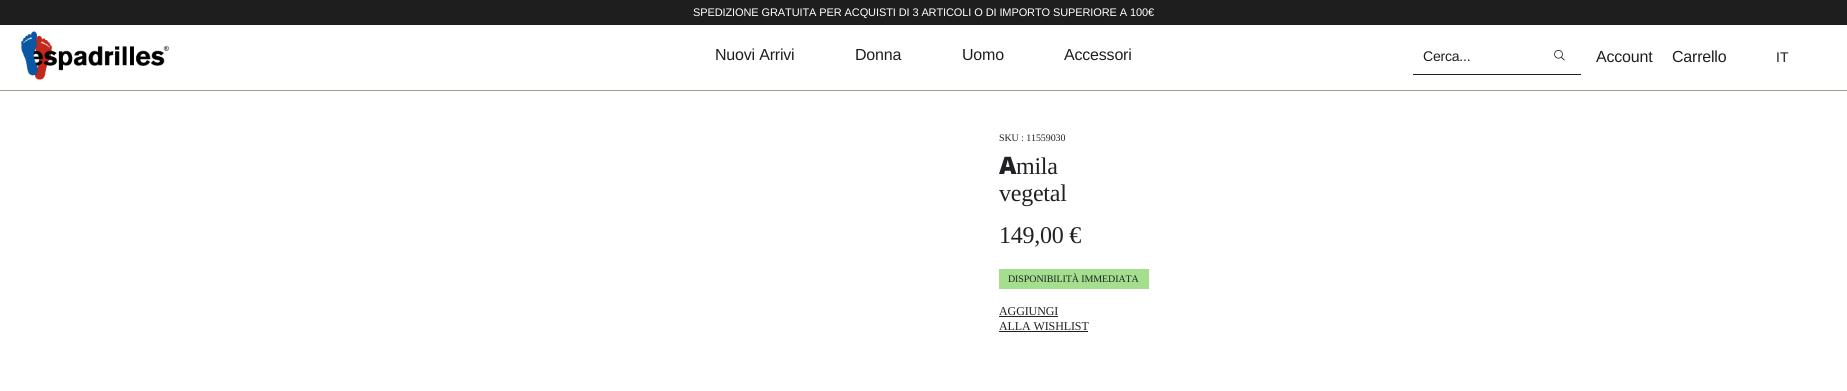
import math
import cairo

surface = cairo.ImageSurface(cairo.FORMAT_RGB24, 1847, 391)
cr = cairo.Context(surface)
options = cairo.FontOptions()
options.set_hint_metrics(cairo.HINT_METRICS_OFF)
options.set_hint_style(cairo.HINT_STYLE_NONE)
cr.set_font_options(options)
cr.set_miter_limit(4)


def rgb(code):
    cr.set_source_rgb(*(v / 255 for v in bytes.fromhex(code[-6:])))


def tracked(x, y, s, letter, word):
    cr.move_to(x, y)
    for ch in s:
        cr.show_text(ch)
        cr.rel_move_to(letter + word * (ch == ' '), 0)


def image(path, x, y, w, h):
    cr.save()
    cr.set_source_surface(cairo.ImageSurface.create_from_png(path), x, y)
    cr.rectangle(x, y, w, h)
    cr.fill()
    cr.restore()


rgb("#ffffff")
cr.paint()
rgb("#a69989")
cr.rectangle(0, 90, 1847, 1)
cr.fill()
rgb("#1e1e1e")
cr.rectangle(0, 0, 1847, 25)
cr.fill()
image("img/1.png", 20, 31, 150, 49)
rgb("#202124")
cr.rectangle(1413, 74, 168, 1)
cr.fill()
image("img/2.png", 1554, 50, 11, 11)
for x, y, w, h, color in [
    (999, 269, 150, 20, "#a4df8e"),
    (999, 316, 59, 1, "#202124"),
    (999, 331, 89, 1, "#202124"),
]:
    rgb(color)
    cr.rectangle(x, y, w, h)
    cr.fill()
cr.select_font_face("Liberation Sans")
cr.set_font_size(11)
rgb("#ffffff")
tracked(693, 16, "SPEDIZIONE GRATUITA PER ACQUISTI DI 3 ARTICOLI O DI IMPORTO SUPERIORE A 100€", -0.1, 0)
cr.set_font_size(16)
rgb("#1e1e1e")
for x, y, s in [
    (715, 60, "Nuovi Arrivi"),
    (855, 60, "Donna"),
    (962, 60, "Uomo"),
    (1064, 60, "Accessori"),
]:
    tracked(x, y, s, -0.2, 0)
cr.set_font_size(14)
tracked(1423, 61, "Cerca...", -0.2, 0)
cr.set_font_size(16)
tracked(1596, 62, "Account", -0.2, 0)
tracked(1672, 62, "Carrello", -0.2, 0)
cr.set_font_size(14)
cr.move_to(1776, 62)
cr.show_text("IT")
cr.select_font_face("Liberation Serif")
cr.set_font_size(10)
rgb("#202124")
tracked(999, 141, "SKU : 11559030", -0.1, 0)
cr.select_font_face("Noto Sans Black")
cr.set_font_size(24)
tracked(999, 174, "A", -0.25, 0)
cr.select_font_face("Liberation Serif")
for x, y, s in [
    (1016, 174, "mila"),
    (999, 201, "vegetal"),
    (999, 243, "149,00 €"),
]:
    tracked(x, y, s, -0.25, 0)
cr.set_font_size(10)
tracked(1008, 282, "DISPONIBILITÀ IMMEDIATA", -0.1, 0)
cr.set_font_size(12)
tracked(999, 315, "AGGIUNGI", -0.1, 0)
tracked(999, 330, "ALLA WISHLIST", -0.1, 0)
surface.write_to_png("page.png")
